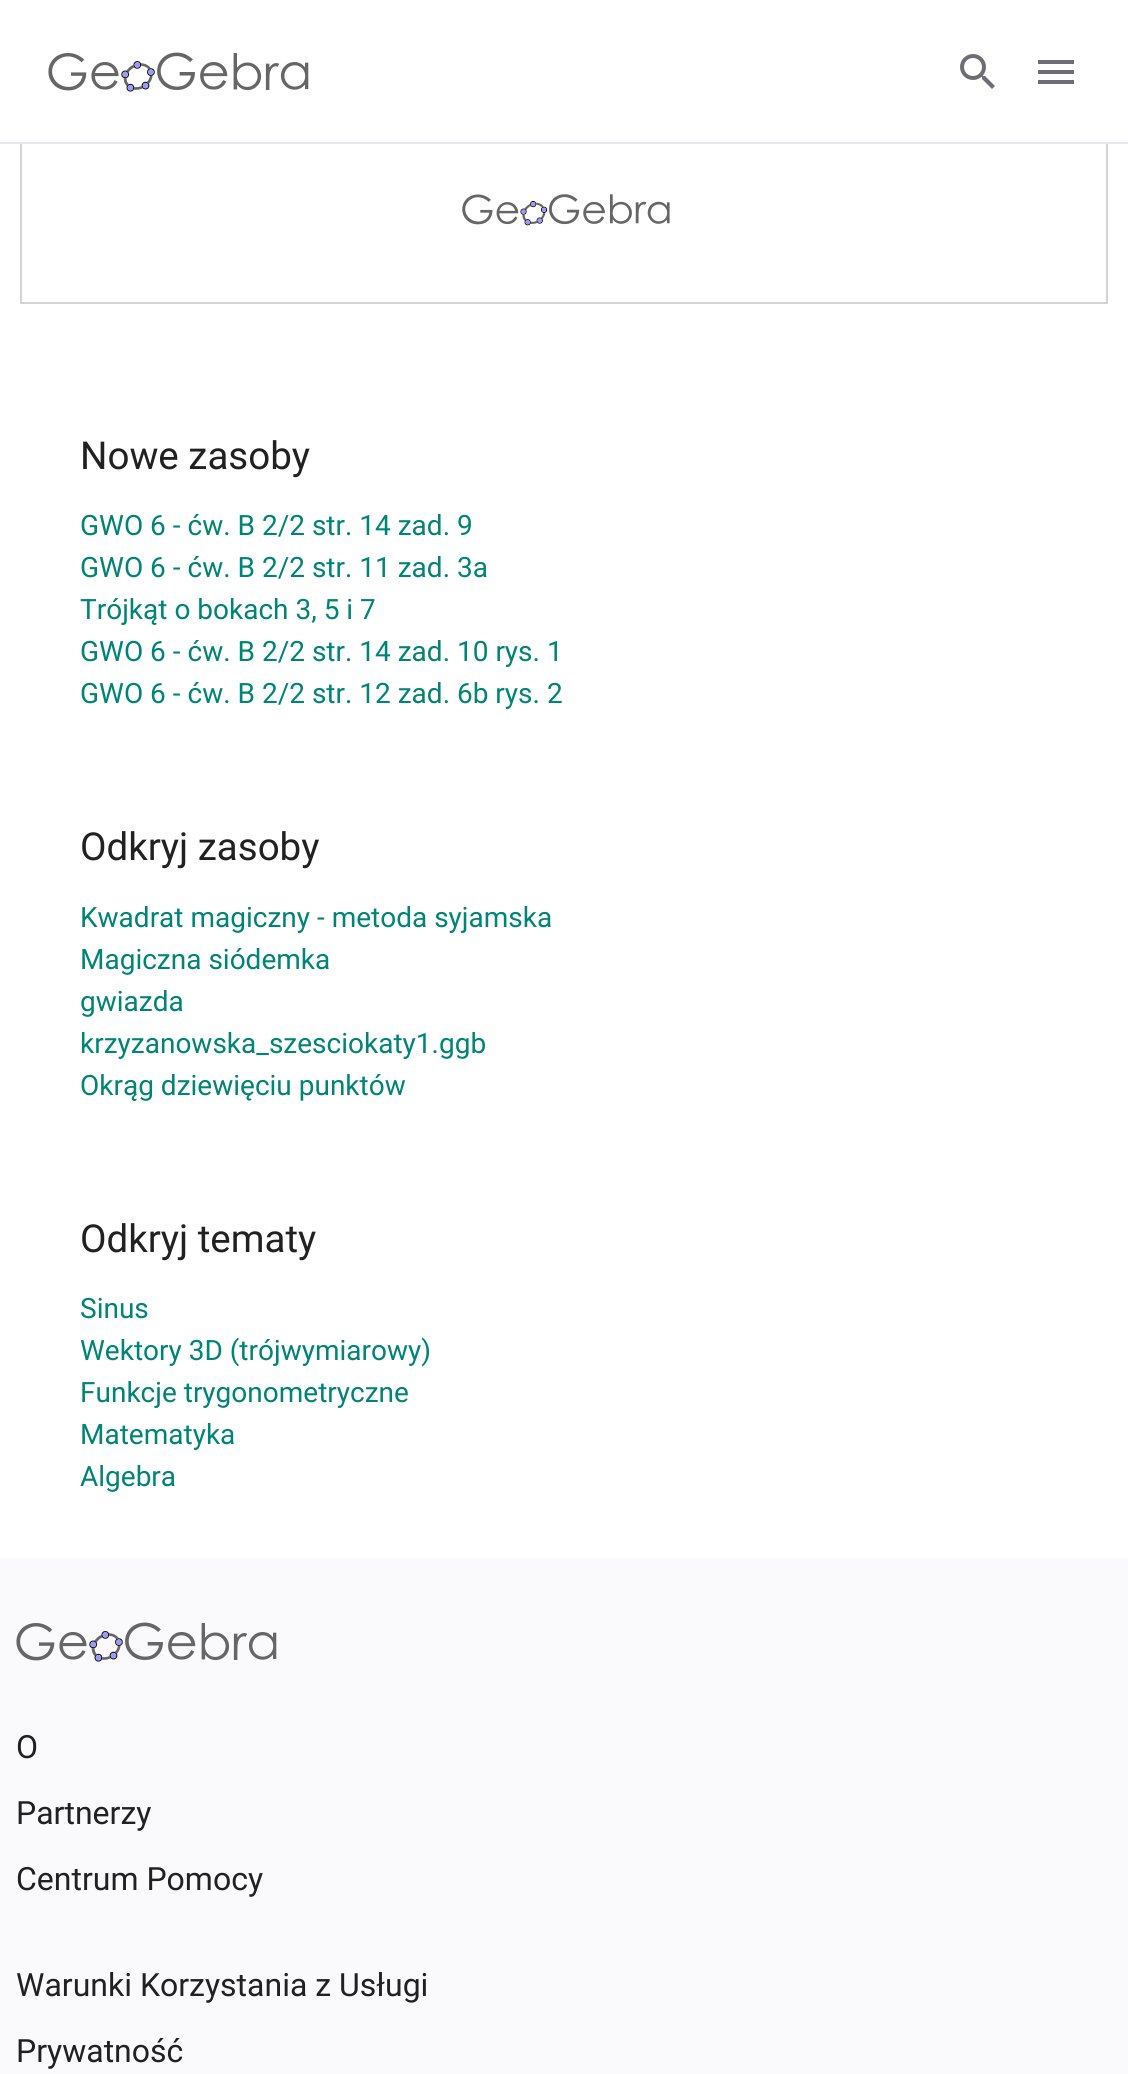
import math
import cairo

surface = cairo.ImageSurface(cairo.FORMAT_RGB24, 1128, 2074)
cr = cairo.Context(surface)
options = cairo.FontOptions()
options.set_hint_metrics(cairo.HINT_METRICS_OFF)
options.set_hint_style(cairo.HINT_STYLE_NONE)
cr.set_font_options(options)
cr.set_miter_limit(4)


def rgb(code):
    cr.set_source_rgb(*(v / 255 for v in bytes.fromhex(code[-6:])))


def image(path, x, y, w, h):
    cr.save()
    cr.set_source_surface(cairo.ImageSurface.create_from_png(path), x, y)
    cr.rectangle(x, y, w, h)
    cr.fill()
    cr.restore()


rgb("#ffffff")
cr.paint()
image("img/4.png", 462, 194, 208, 32)
cr.rectangle(21, -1, 1086, 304)
rgb("#d3d3d3")
cr.stroke()
rgb("#ffffff")
cr.rectangle(20, 0, 1088, 142)
cr.fill()
rgb("#e6e6eb")
cr.rectangle(0, 142, 1128, 2)
cr.fill()
image("img/1.png", 48, 52, 261, 40)
image("img/2.png", 960, 54, 35, 35)
image("img/3.png", 1038, 60, 36, 24)
rgb("#fafafc")
cr.rectangle(0, 1558, 1128, 516)
cr.fill()
image("img/5.png", 16, 1622, 261, 40)
cr.select_font_face("Roboto")
cr.set_font_size(38.5)
rgb("#212121")
cr.move_to(80, 469)
cr.show_text("Nowe zasoby")
cr.set_font_size(28)
rgb("#008475")
for x, y, s in [
    (80, 535, "GWO 6 - ćw. B 2/2 str. 14 zad. 9"),
    (80, 577, "GWO 6 - ćw. B 2/2 str. 11 zad. 3a"),
    (80, 619, "Trójkąt o bokach 3, 5 i 7"),
    (80, 661, "GWO 6 - ćw. B 2/2 str. 14 zad. 10 rys. 1"),
    (80, 703, "GWO 6 - ćw. B 2/2 str. 12 zad. 6b rys. 2"),
]:
    cr.move_to(x, y)
    cr.show_text(s)
cr.set_font_size(38.5)
rgb("#212121")
cr.move_to(80, 860)
cr.show_text("Odkryj zasoby")
cr.set_font_size(28)
rgb("#008475")
for x, y, s in [
    (80, 927, "Kwadrat magiczny - metoda syjamska"),
    (80, 969, "Magiczna siódemka"),
    (80, 1011, "gwiazda"),
    (80, 1053, "krzyzanowska_szesciokaty1.ggb"),
    (80, 1095, "Okrąg dziewięciu punktów"),
]:
    cr.move_to(x, y)
    cr.show_text(s)
cr.set_font_size(38.5)
rgb("#212121")
cr.move_to(80, 1252)
cr.show_text("Odkryj tematy")
cr.set_font_size(28)
rgb("#008475")
for x, y, s in [
    (80, 1318, "Sinus"),
    (80, 1360, "Wektory 3D (trójwymiarowy)"),
    (80, 1402, "Funkcje trygonometryczne"),
    (80, 1444, "Matematyka"),
    (80, 1486, "Algebra"),
]:
    cr.move_to(x, y)
    cr.show_text(s)
cr.set_font_size(32)
rgb("#212121")
for x, y, s in [
    (16, 1758, "O"),
    (16, 1824, "Partnerzy"),
    (16, 1890, "Centrum Pomocy"),
    (16, 1996, "Warunki Korzystania z Usługi"),
    (16, 2062, "Prywatność"),
]:
    cr.move_to(x, y)
    cr.show_text(s)
surface.write_to_png("page.png")
